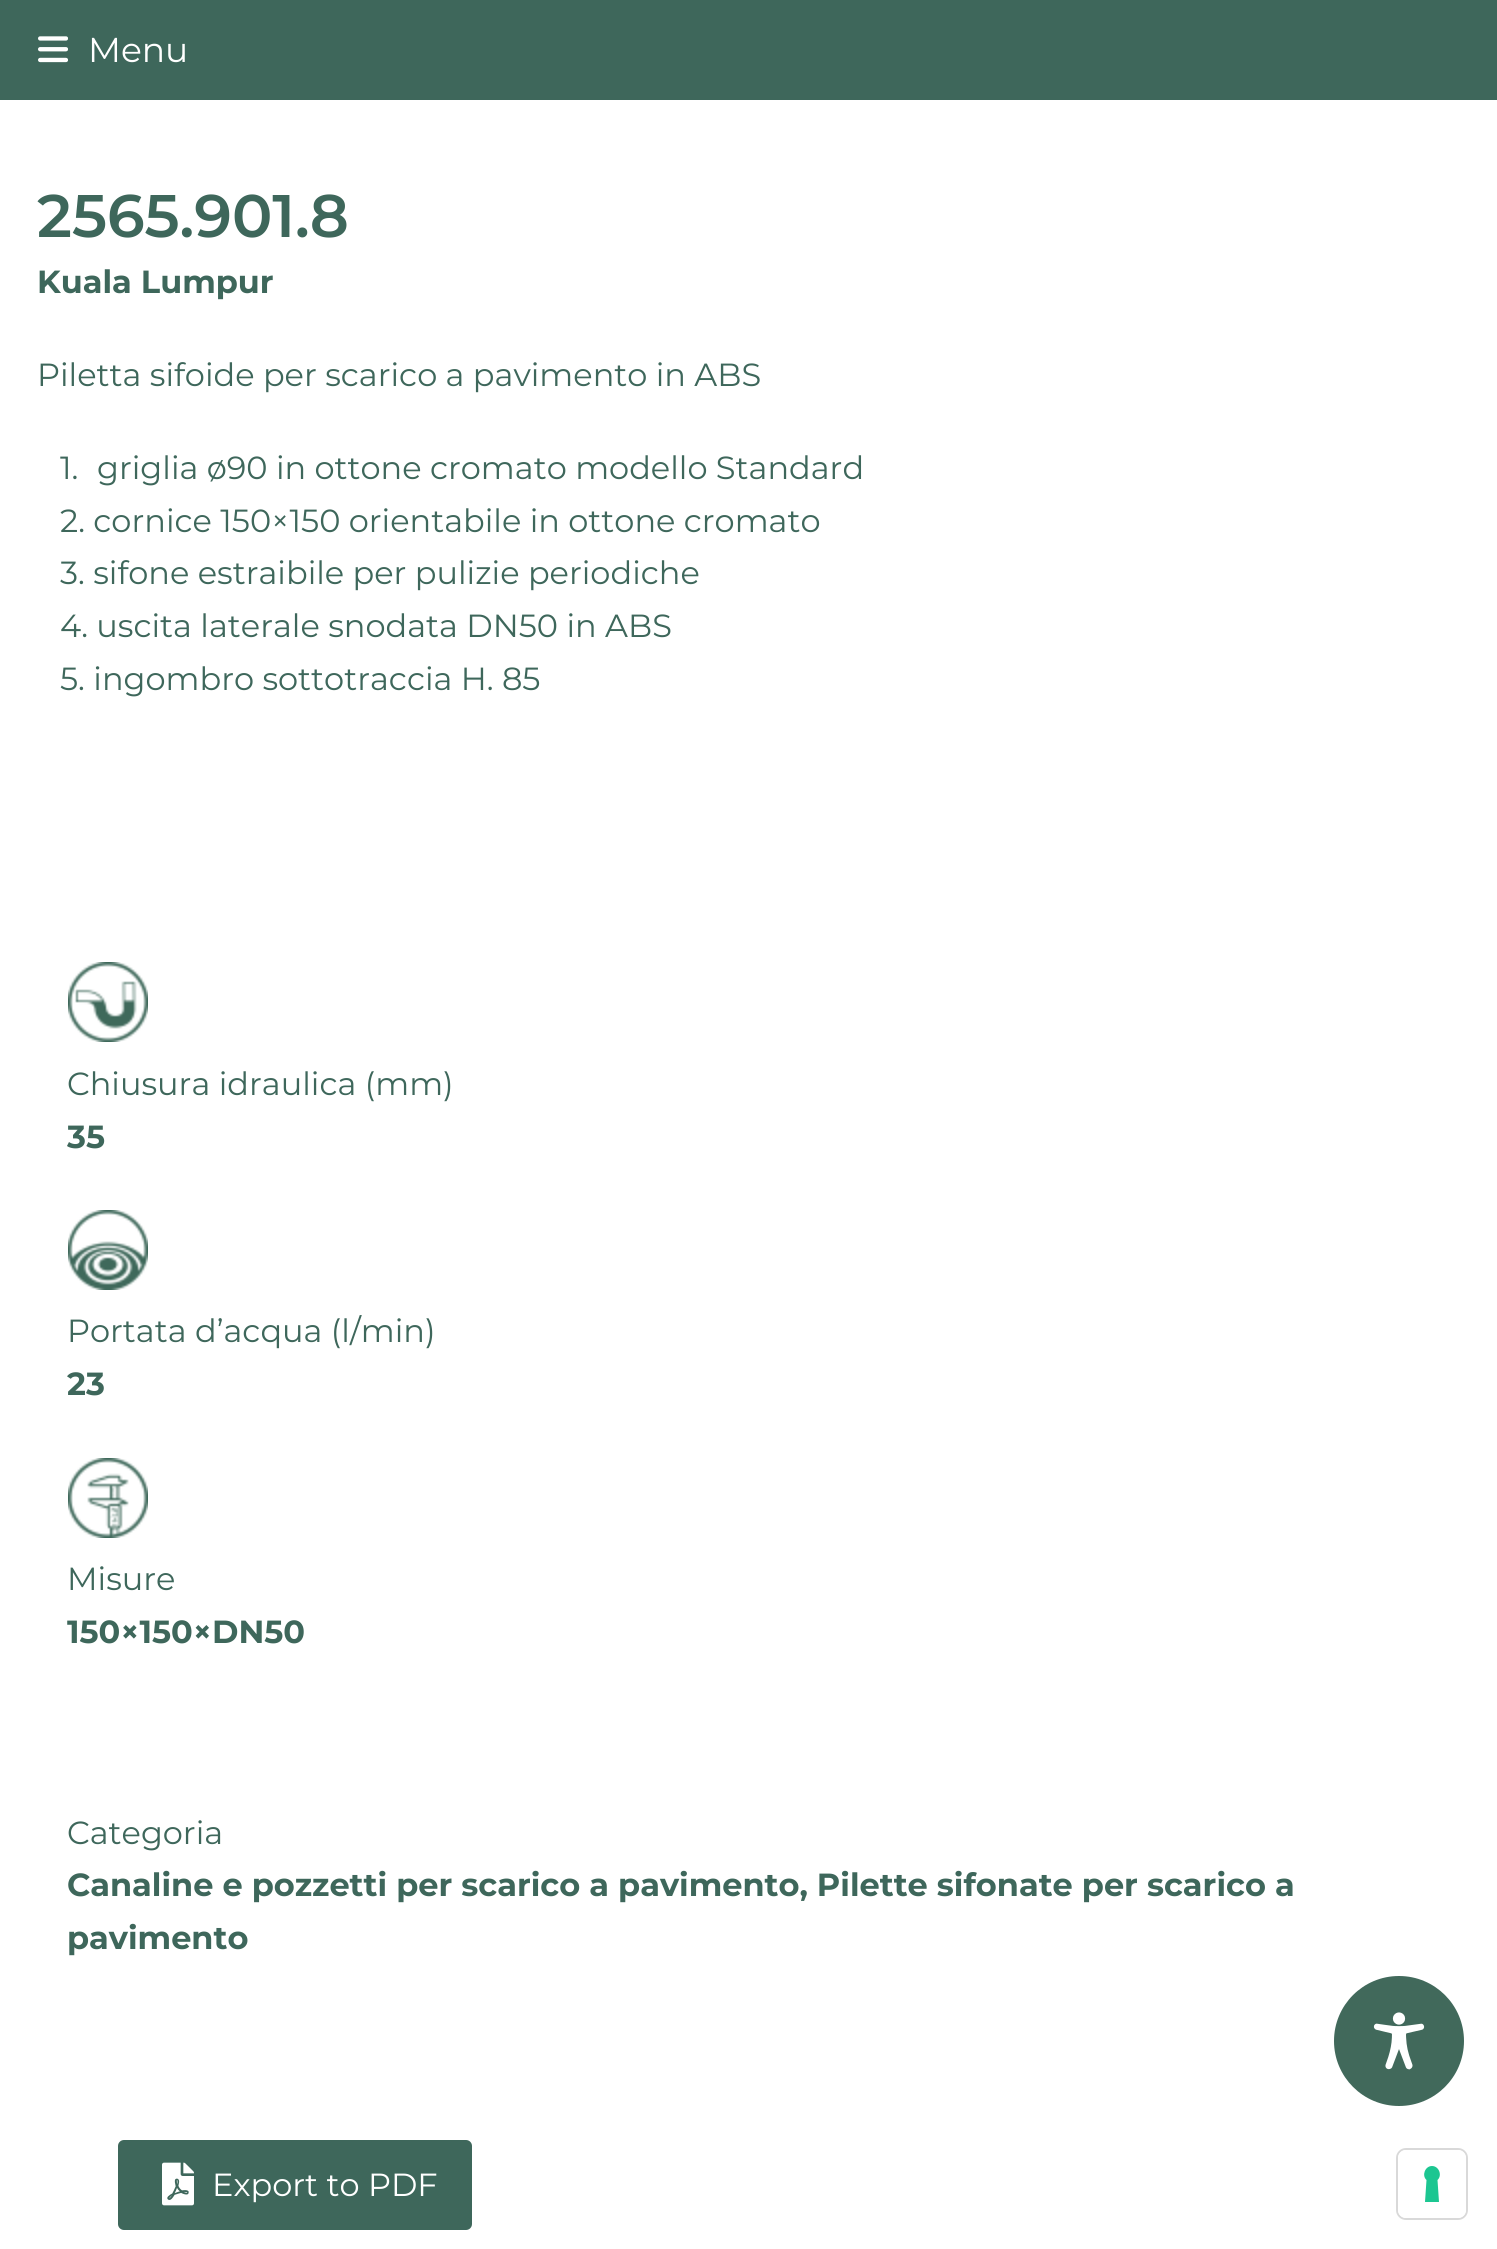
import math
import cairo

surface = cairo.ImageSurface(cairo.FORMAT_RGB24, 1497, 2249)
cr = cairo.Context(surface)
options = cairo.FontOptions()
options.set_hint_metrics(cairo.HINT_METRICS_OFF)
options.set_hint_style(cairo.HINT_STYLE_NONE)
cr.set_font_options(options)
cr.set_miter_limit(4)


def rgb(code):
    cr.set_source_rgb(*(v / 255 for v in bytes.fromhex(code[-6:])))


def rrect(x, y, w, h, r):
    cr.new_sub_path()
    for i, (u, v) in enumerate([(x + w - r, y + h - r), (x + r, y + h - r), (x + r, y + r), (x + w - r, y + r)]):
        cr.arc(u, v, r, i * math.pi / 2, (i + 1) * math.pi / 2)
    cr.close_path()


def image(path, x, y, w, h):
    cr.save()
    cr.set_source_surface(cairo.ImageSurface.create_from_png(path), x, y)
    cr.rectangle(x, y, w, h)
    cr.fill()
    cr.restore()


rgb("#ffffff")
cr.paint()
rgb("#3e675b")
cr.rectangle(0, 0, 1497, 100)
cr.fill()
image("img/1.png", 38, 36, 30, 27)
image("img/2.png", 68, 962, 80, 80)
image("img/3.png", 68, 1210, 80, 80)
image("img/4.png", 68, 1458, 80, 80)
rrect(118, 2140, 354, 90, 6)
cr.fill()
image("img/5.png", 162, 2162, 32, 44)
rgb("#41695b")
cr.arc(1399, 2041, 65, 0, 2 * math.pi)
cr.fill()
image("img/6.png", 1373, 2012, 52, 58)
rrect(1397, 2149, 70, 70, 9)
rgb("#d9d9d9")
cr.stroke()
rgb("#ffffff")
rrect(1398, 2150, 68, 68, 8)
cr.fill()
rgb("#1cc691")
cr.set_fill_rule(cairo.FILL_RULE_EVEN_ODD)
cr.new_path()
cr.move_to(1432, 2166)
cr.curve_to(1439, 2166, 1442.5, 2175.5, 1437.5, 2180)
cr.line_to(1439, 2202)
cr.line_to(1425, 2202)
cr.line_to(1426.5, 2180)
cr.curve_to(1421.5, 2175.5, 1425, 2166, 1432, 2166)
cr.close_path()
cr.fill()
cr.select_font_face("Montserrat")
cr.set_font_size(34.5)
rgb("#ffffff")
cr.move_to(88, 62)
cr.show_text("Menu")
cr.select_font_face("Montserrat SemiBold")
cr.set_font_size(60)
rgb("#3e675b")
cr.move_to(37, 237)
cr.show_text("2565.901.8")
cr.select_font_face("Montserrat", cairo.FONT_SLANT_NORMAL, cairo.FONT_WEIGHT_BOLD)
cr.set_font_size(32)
cr.move_to(37, 293)
cr.show_text("Kuala Lumpur")
cr.select_font_face("Montserrat")
for x, y, s in [
    (37, 386, "Piletta sifoide per scarico a pavimento in ABS"),
    (60, 479, "1."),
    (97, 479, "griglia ø90 in ottone cromato modello Standard"),
    (60, 532, "2. cornice 150×150 orientabile in ottone cromato"),
    (60, 584, "3. sifone estraibile per pulizie periodiche"),
    (60, 637, "4. uscita laterale snodata DN50 in ABS"),
    (60, 690, "5. ingombro sottotraccia H. 85"),
    (67, 1095, "Chiusura idraulica (mm)"),
]:
    cr.move_to(x, y)
    cr.show_text(s)
cr.select_font_face("Montserrat", cairo.FONT_SLANT_NORMAL, cairo.FONT_WEIGHT_BOLD)
cr.move_to(67, 1148)
cr.show_text("35")
cr.select_font_face("Montserrat")
cr.move_to(67, 1342)
cr.show_text("Portata d’acqua (l/min)")
cr.select_font_face("Montserrat", cairo.FONT_SLANT_NORMAL, cairo.FONT_WEIGHT_BOLD)
cr.move_to(67, 1395)
cr.show_text("23")
cr.select_font_face("Montserrat")
cr.move_to(67, 1590)
cr.show_text("Misure")
cr.select_font_face("Montserrat", cairo.FONT_SLANT_NORMAL, cairo.FONT_WEIGHT_BOLD)
cr.move_to(67, 1643)
cr.show_text("150×150×DN50")
cr.select_font_face("Montserrat")
cr.move_to(67, 1844)
cr.show_text("Categoria")
cr.select_font_face("Montserrat", cairo.FONT_SLANT_NORMAL, cairo.FONT_WEIGHT_BOLD)
cr.move_to(67, 1896)
cr.show_text("Canaline e pozzetti per scarico a pavimento, Pilette sifonate per scarico a")
cr.move_to(67, 1949)
cr.show_text("pavimento")
cr.select_font_face("Montserrat")
rgb("#ffffff")
cr.move_to(212, 2196)
cr.show_text("Export to PDF")
surface.write_to_png("page.png")
